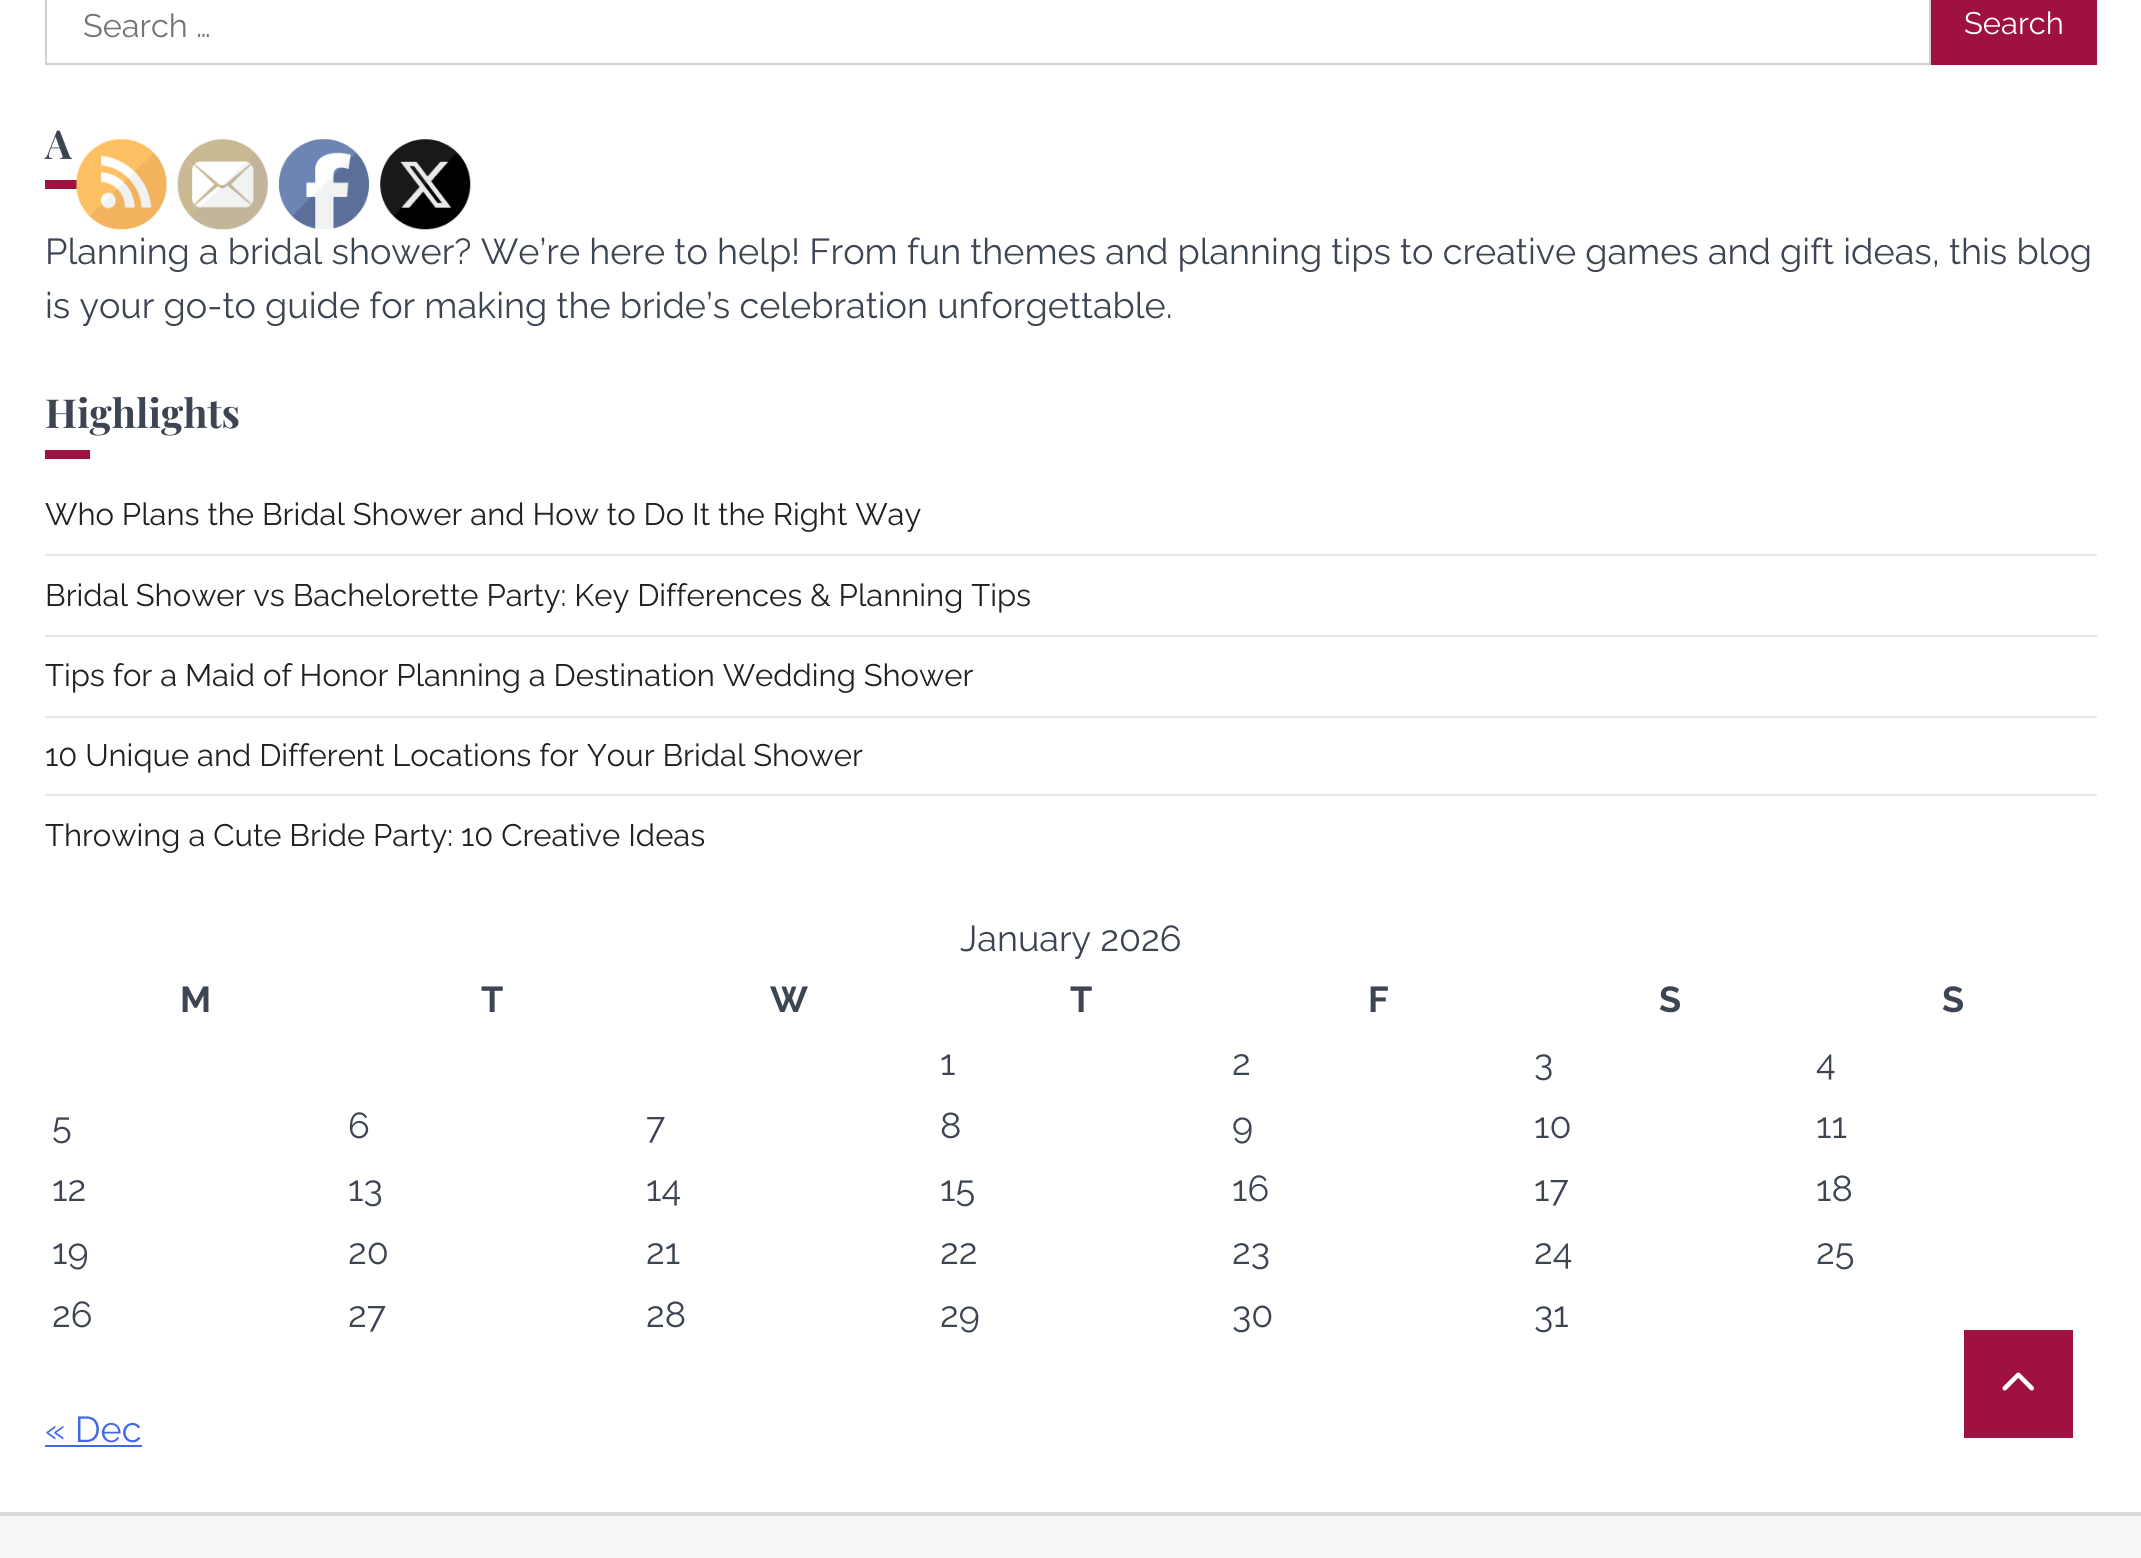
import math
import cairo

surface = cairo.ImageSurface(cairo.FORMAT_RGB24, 2141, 1558)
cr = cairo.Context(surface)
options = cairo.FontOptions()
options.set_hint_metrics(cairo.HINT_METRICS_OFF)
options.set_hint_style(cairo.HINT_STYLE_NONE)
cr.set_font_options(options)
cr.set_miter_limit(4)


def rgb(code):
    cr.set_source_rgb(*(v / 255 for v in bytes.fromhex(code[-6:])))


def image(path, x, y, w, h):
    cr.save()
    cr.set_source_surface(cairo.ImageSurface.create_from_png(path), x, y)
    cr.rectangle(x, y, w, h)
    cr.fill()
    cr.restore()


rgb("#ffffff")
cr.paint()
cr.rectangle(46, -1, 1884, 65)
rgb("#d3ced2")
cr.stroke()
for x, y, w, h, color in [
    (1931, 0, 166, 65, "#9e1140"),
    (45, 180, 33, 9, "#9e1140"),
    (45, 450, 45, 9, "#9e1140"),
    (45, 554, 2052, 2, "#e6e6e6"),
    (45, 635, 2052, 2, "#e6e6e6"),
    (45, 716, 2052, 2, "#e6e6e6"),
    (45, 794, 2052, 2, "#e6e6e6"),
    (45, 1445, 97, 2, "#4169e1"),
    (1964, 1330, 109, 108, "#9e1140"),
]:
    rgb(color)
    cr.rectangle(x, y, w, h)
    cr.fill()
image("img/1.png", 2002, 1372, 32, 19)
for x, y, w, h, color in [
    (0, 1516, 2141, 1, "#fbfbfb"),
    (0, 1512, 2141, 4, "#dadadb"),
    (0, 1517, 2141, 41, "#f7f7f7"),
]:
    rgb(color)
    cr.rectangle(x, y, w, h)
    cr.fill()
image("img/2.png", 76, 139, 91, 91)
image("img/3.png", 177, 139, 91, 91)
image("img/4.png", 279, 139, 90, 90)
image("img/5.png", 380, 139, 91, 91)
cr.select_font_face("Raleway")
cr.set_font_size(32.5)
rgb("#757575")
cr.move_to(83, 37)
cr.show_text("Search …")
cr.set_font_size(31)
rgb("#ffffff")
cr.move_to(1964, 34)
cr.show_text("Search")
cr.select_font_face("Playfair Display", cairo.FONT_SLANT_NORMAL, cairo.FONT_WEIGHT_BOLD)
cr.set_font_size(40)
rgb("#3d4452")
cr.move_to(45, 159)
cr.show_text("A")
cr.select_font_face("Raleway")
cr.set_font_size(36)
cr.move_to(45, 264)
cr.show_text("Planning a bridal shower? We’re here to help! From fun themes and planning tips to creative games and gift ideas, this blog")
cr.move_to(45, 318)
cr.show_text("is your go-to guide for making the bride’s celebration unforgettable.")
cr.select_font_face("Playfair Display", cairo.FONT_SLANT_NORMAL, cairo.FONT_WEIGHT_BOLD)
cr.set_font_size(40)
cr.move_to(45, 428)
cr.show_text("Highlights")
cr.select_font_face("Raleway")
cr.set_font_size(31)
rgb("#202124")
for x, y, s in [
    (45, 525, "Who Plans the Bridal Shower and How to Do It the Right Way"),
    (45, 606, "Bridal Shower vs Bachelorette Party: Key Differences & Planning Tips"),
    (45, 686, "Tips for a Maid of Honor Planning a Destination Wedding Shower"),
    (45, 766, "10 Unique and Different Locations for Your Bridal Shower"),
    (45, 846, "Throwing a Cute Bride Party: 10 Creative Ideas"),
]:
    cr.move_to(x, y)
    cr.show_text(s)
cr.set_font_size(36)
rgb("#3d4452")
cr.move_to(960, 951)
cr.show_text("January 2026")
cr.select_font_face("Raleway", cairo.FONT_SLANT_NORMAL, cairo.FONT_WEIGHT_BOLD)
for x, y, s in [
    (180, 1012, "M"),
    (481, 1012, "T"),
    (770, 1012, "W"),
    (1070, 1012, "T"),
    (1368, 1012, "F"),
    (1659, 1012, "S"),
    (1942, 1012, "S"),
]:
    cr.move_to(x, y)
    cr.show_text(s)
cr.select_font_face("Raleway")
for x, y, s in [
    (940, 1075, "1"),
    (1232, 1075, "2"),
    (1534, 1075, "3"),
    (1816, 1075, "4"),
    (52, 1138, "5"),
    (348, 1138, "6"),
    (646, 1138, "7"),
    (940, 1138, "8"),
    (1232, 1138, "9"),
    (1534, 1138, "10"),
    (1816, 1138, "11"),
    (52, 1201, "12"),
    (348, 1201, "13"),
    (646, 1201, "14"),
    (940, 1201, "15"),
    (1232, 1201, "16"),
    (1534, 1201, "17"),
    (1816, 1201, "18"),
    (52, 1264, "19"),
    (348, 1264, "20"),
    (646, 1264, "21"),
    (940, 1264, "22"),
    (1232, 1264, "23"),
    (1534, 1264, "24"),
    (1816, 1264, "25"),
    (52, 1327, "26"),
    (348, 1327, "27"),
    (646, 1327, "28"),
    (940, 1327, "29"),
    (1232, 1327, "30"),
    (1534, 1327, "31"),
]:
    cr.move_to(x, y)
    cr.show_text(s)
rgb("#4169e1")
cr.move_to(45, 1442)
cr.show_text("« Dec")
surface.write_to_png("page.png")
